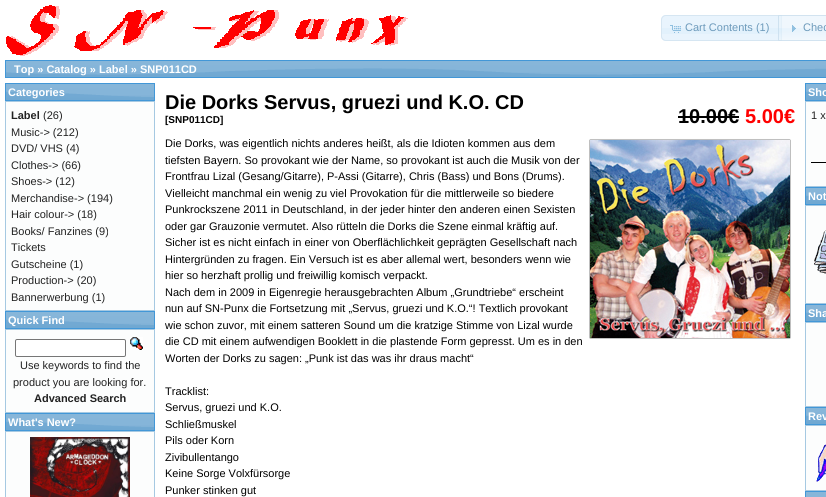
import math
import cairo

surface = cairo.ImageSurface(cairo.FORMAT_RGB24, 826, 497)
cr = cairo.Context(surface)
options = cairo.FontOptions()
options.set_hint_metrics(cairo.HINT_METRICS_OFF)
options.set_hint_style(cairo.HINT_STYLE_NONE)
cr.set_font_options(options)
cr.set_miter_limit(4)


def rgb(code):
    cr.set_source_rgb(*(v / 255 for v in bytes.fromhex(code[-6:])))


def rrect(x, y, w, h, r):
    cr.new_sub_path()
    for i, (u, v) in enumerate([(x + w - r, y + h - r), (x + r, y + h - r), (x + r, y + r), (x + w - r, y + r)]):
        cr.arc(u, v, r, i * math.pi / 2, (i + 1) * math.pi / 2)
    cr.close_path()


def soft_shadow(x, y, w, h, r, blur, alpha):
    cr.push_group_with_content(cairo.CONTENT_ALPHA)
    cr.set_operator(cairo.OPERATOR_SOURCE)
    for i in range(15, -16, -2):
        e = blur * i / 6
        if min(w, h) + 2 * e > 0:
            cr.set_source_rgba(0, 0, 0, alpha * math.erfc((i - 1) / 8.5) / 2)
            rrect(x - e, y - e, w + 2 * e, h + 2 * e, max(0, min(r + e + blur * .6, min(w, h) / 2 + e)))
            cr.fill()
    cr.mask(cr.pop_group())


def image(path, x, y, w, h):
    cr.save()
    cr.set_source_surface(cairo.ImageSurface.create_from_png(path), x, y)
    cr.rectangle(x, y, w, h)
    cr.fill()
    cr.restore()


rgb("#ffffff")
cr.paint()
image("img/1.png", 6, 5, 402, 51)
rgb("#e9f4fd")
cr.new_path()
cr.move_to(666, 15)
cr.line_to(782, 15)
cr.line_to(782, 41)
cr.line_to(666, 41)
cr.curve_to(663, 41, 661, 39, 661, 36)
cr.line_to(661, 20)
cr.curve_to(661, 17, 663, 15, 666, 15)
cr.close_path()
cr.fill()
rgb("#e2f1fc")
cr.rectangle(661, 28, 121, 6)
cr.fill()
cr.new_path()
cr.move_to(666, 15.5)
cr.line_to(781.5, 15.5)
cr.line_to(781.5, 40.5)
cr.line_to(666, 40.5)
cr.curve_to(663.5, 40.5, 661.5, 38.5, 661.5, 36)
cr.line_to(661.5, 20)
cr.curve_to(661.5, 17.5, 663.5, 15.5, 666, 15.5)
cr.close_path()
rgb("#d6e6f2")
cr.set_line_width(1)
cr.stroke()
image("img/2.png", 670, 25, 11, 8)
image("img/3.png", 778, 15, 48, 26)
cr.rectangle(778.5, 15.5, 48, 25)
cr.set_source_rgba(0.773, 0.859, 0.925, 0.7)
cr.stroke()
image("img/4.png", 792, 25, 4, 7)
image("img/5.png", 6, 61, 820, 16)
cr.rectangle(5.5, 60.5, 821, 17)
rgb("#4297d7")
cr.stroke()
image("img/6.png", 6, 84, 148, 16)
cr.rectangle(5.5, 83.5, 149, 17)
cr.stroke()
rgb("#fcfdfd")
cr.rectangle(5.5, 101.5, 149, 209)
cr.fill_preserve()
rgb("#a6c9e2")
cr.stroke()
image("img/6.png", 6, 312, 148, 16)
cr.rectangle(5.5, 311.5, 149, 17)
rgb("#4297d7")
cr.stroke()
rgb("#fcfdfd")
cr.rectangle(5.5, 329.5, 149, 83)
cr.fill_preserve()
rgb("#a6c9e2")
cr.stroke()
rgb("#ffffff")
rrect(15.5, 339.5, 110, 17, 1.5)
cr.fill_preserve()
rgb("#767676")
cr.stroke()
image("img/7.png", 130, 337, 13, 13)
image("img/6.png", 6, 414, 148, 16)
cr.rectangle(5.5, 413.5, 149, 17)
rgb("#4297d7")
cr.stroke()
rgb("#fcfdfd")
cr.rectangle(5.5, 431.5, 149, 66)
cr.fill_preserve()
rgb("#a6c9e2")
cr.stroke()
image("img/8.png", 30, 437, 100, 60)
rgb("#000000")
cr.rectangle(678, 116, 61, 2)
cr.fill()
rgb("#000000")
soft_shadow(590, 140, 200, 198, 0, 0.5, 1)
image("img/9.png", 590, 140, 200, 198)
image("img/10.png", 806, 84, 20, 16)
cr.rectangle(805.5, 83.5, 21, 17)
rgb("#4297d7")
cr.stroke()
rgb("#fcfdfd")
cr.rectangle(805.5, 101.5, 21, 85)
cr.fill_preserve()
rgb("#a6c9e2")
cr.stroke()
rgb("#000000")
cr.rectangle(811, 162, 15, 1)
cr.fill()
image("img/10.png", 806, 188, 20, 16)
cr.rectangle(805.5, 187.5, 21, 17)
rgb("#4297d7")
cr.stroke()
rgb("#fcfdfd")
cr.rectangle(805.5, 205.5, 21, 98)
cr.fill_preserve()
rgb("#a6c9e2")
cr.stroke()
image("img/11.png", 814, 230, 12, 44)
image("img/10.png", 806, 305, 20, 16)
cr.rectangle(805.5, 304.5, 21, 17)
rgb("#4297d7")
cr.stroke()
rgb("#fcfdfd")
cr.rectangle(805.5, 322.5, 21, 84)
cr.fill_preserve()
rgb("#a6c9e2")
cr.stroke()
image("img/10.png", 806, 408, 20, 16)
cr.rectangle(805.5, 407.5, 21, 17)
rgb("#4297d7")
cr.stroke()
rgb("#fcfdfd")
cr.rectangle(805.5, 425.5, 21, 65)
cr.fill_preserve()
rgb("#a6c9e2")
cr.stroke()
image("img/12.png", 816, 444, 10, 38)
rgb("#87b6d9")
cr.rectangle(805.5, 491.5, 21, 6)
cr.fill_preserve()
rgb("#4297d7")
cr.stroke()
cr.select_font_face("Liberation Sans")
cr.set_font_size(11)
rgb("#6d9abb")
cr.move_to(685, 31)
cr.show_text("Cart Contents (1)")
cr.move_to(803, 31)
cr.show_text("Chec")
cr.select_font_face("Liberation Sans", cairo.FONT_SLANT_NORMAL, cairo.FONT_WEIGHT_BOLD)
rgb("#ffffff")
cr.move_to(14, 73)
cr.show_text("Top » Catalog » Label » SNP011CD")
cr.move_to(8, 96)
cr.show_text("Categories")
rgb("#222222")
cr.move_to(11, 119)
cr.show_text("Label")
cr.select_font_face("Liberation Sans")
for x, y, s in [
    (43, 119, "(26)"),
    (11, 136, "Music-> (212)"),
    (11, 152, "DVD/ VHS (4)"),
    (11, 169, "Clothes-> (66)"),
    (11, 185, "Shoes-> (12)"),
    (11, 202, "Merchandise-> (194)"),
    (11, 218, "Hair colour-> (18)"),
    (11, 235, "Books/ Fanzines (9)"),
    (11, 251, "Tickets"),
    (11, 268, "Gutscheine (1)"),
    (11, 284, "Production-> (20)"),
    (11, 301, "Bannerwerbung (1)"),
]:
    cr.move_to(x, y)
    cr.show_text(s)
cr.select_font_face("Liberation Sans", cairo.FONT_SLANT_NORMAL, cairo.FONT_WEIGHT_BOLD)
rgb("#ffffff")
cr.move_to(8, 324)
cr.show_text("Quick Find")
cr.select_font_face("Liberation Sans")
rgb("#222222")
cr.move_to(20, 369)
cr.show_text("Use keywords to find the")
cr.move_to(13, 386)
cr.show_text("product you are looking for.")
cr.select_font_face("Liberation Sans", cairo.FONT_SLANT_NORMAL, cairo.FONT_WEIGHT_BOLD)
cr.move_to(34, 402)
cr.show_text("Advanced Search")
rgb("#ffffff")
cr.move_to(8, 426)
cr.show_text("What's New?")
cr.set_font_size(20)
rgb("#000000")
cr.move_to(165, 109)
cr.show_text("Die Dorks Servus, gruezi und K.O. CD")
cr.set_font_size(10)
cr.move_to(165, 123)
cr.show_text("[SNP011CD]")
cr.set_font_size(20)
cr.move_to(678, 123)
cr.show_text("10.00€")
rgb("#ff0000")
cr.move_to(745, 123)
cr.show_text("5.00€")
cr.select_font_face("Liberation Sans")
cr.set_font_size(11)
rgb("#000000")
for x, y, s in [
    (165, 147, "Die Dorks, was eigentlich nichts anderes heißt, als die Idioten kommen aus dem"),
    (165, 164, "tiefsten Bayern. So provokant wie der Name, so provokant ist auch die Musik von der"),
    (165, 180, "Frontfrau Lizal (Gesang/Gitarre), P-Assi (Gitarre), Chris (Bass) und Bons (Drums)."),
    (165, 197, "Vielleicht manchmal ein wenig zu viel Provokation für die mittlerweile so biedere"),
    (165, 213, "Punkrockszene 2011 in Deutschland, in der jeder hinter den anderen einen Sexisten"),
    (165, 230, "oder gar Grauzonie vermutet. Also rütteln die Dorks die Szene einmal kräftig auf."),
    (165, 246, "Sicher ist es nicht einfach in einer von Oberflächlichkeit geprägten Gesellschaft nach"),
    (165, 263, "Hintergründen zu fragen. Ein Versuch ist es aber allemal wert, besonders wenn wie"),
    (165, 279, "hier so herzhaft prollig und freiwillig komisch verpackt."),
    (165, 296, "Nach dem in 2009 in Eigenregie herausgebrachten Album „Grundtriebe“ erscheint"),
    (165, 312, "nun auf SN-Punx die Fortsetzung mit „Servus, gruezi und K.O.“! Textlich provokant"),
    (165, 329, "wie schon zuvor, mit einem satteren Sound um die kratzige Stimme von Lizal wurde"),
    (165, 345, "die CD mit einem aufwendigen Booklett in die plastende Form gepresst. Um es in den"),
    (165, 362, "Worten der Dorks zu sagen: „Punk ist das was ihr draus macht“"),
    (165, 395, "Tracklist:"),
    (165, 411, "Servus, gruezi und K.O."),
    (165, 428, "Schließmuskel"),
    (165, 444, "Pils oder Korn"),
    (165, 461, "Zivibullentango"),
    (165, 477, "Keine Sorge Volxfürsorge"),
    (165, 494, "Punker stinken gut"),
]:
    cr.move_to(x, y)
    cr.show_text(s)
cr.select_font_face("Liberation Sans", cairo.FONT_SLANT_NORMAL, cairo.FONT_WEIGHT_BOLD)
rgb("#ffffff")
cr.move_to(808, 96)
cr.show_text("Sho")
cr.select_font_face("Liberation Sans")
rgb("#222222")
cr.move_to(811, 119)
cr.show_text("1 x")
cr.select_font_face("Liberation Sans", cairo.FONT_SLANT_NORMAL, cairo.FONT_WEIGHT_BOLD)
rgb("#ffffff")
for x, y, s in [
    (808, 200, "Not"),
    (808, 317, "Sha"),
    (808, 420, "Rev"),
]:
    cr.move_to(x, y)
    cr.show_text(s)
surface.write_to_png("page.png")
